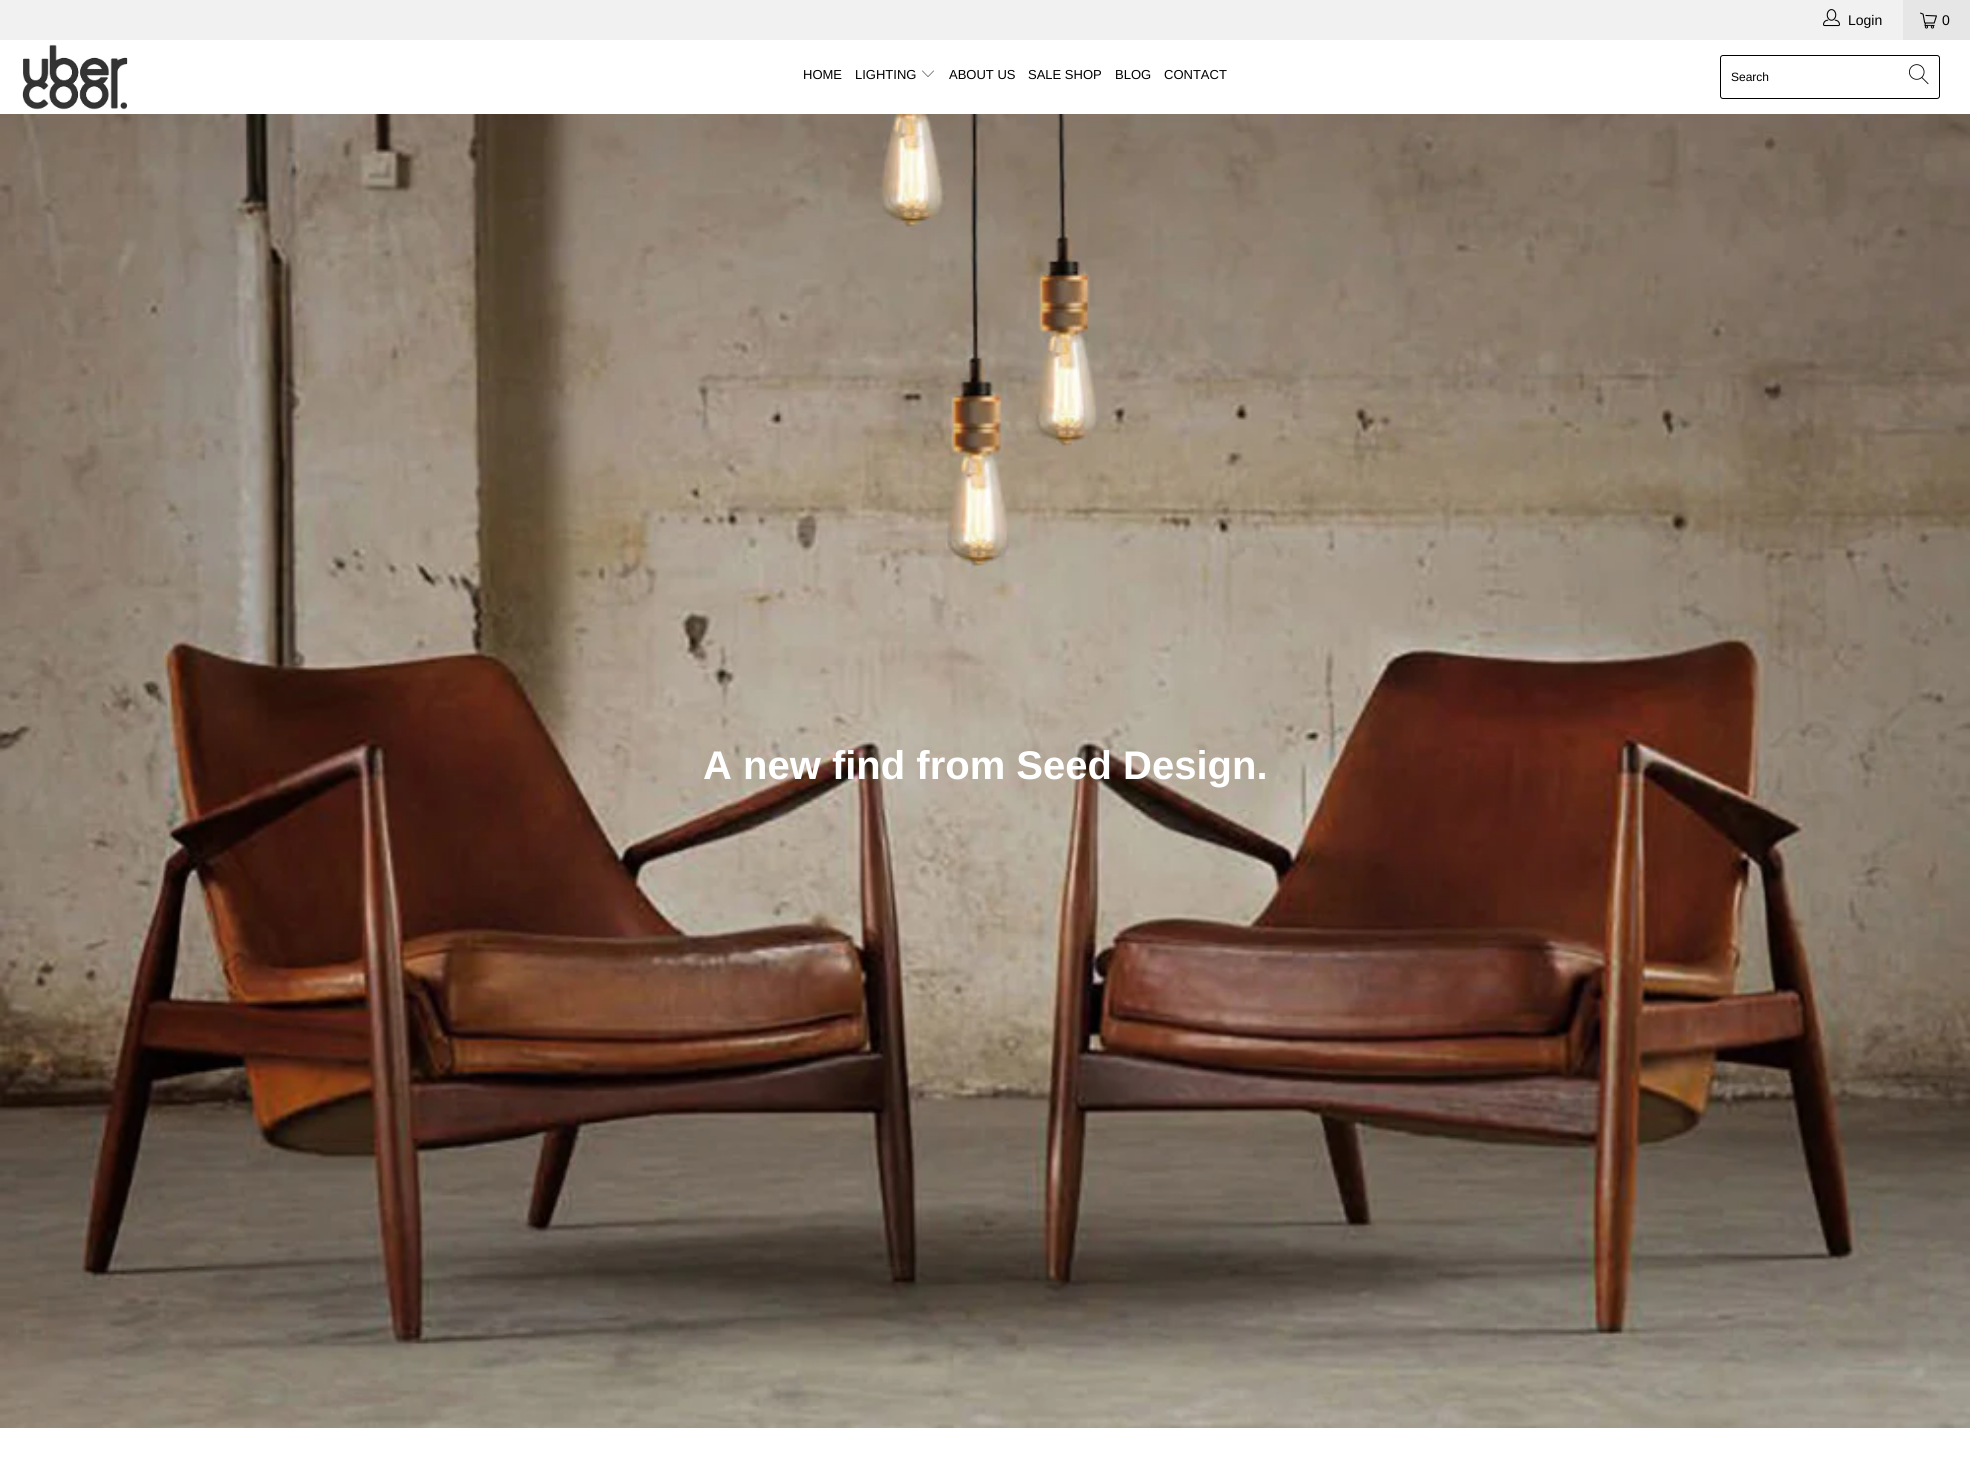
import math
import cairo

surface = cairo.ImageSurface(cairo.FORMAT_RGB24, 1970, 1465)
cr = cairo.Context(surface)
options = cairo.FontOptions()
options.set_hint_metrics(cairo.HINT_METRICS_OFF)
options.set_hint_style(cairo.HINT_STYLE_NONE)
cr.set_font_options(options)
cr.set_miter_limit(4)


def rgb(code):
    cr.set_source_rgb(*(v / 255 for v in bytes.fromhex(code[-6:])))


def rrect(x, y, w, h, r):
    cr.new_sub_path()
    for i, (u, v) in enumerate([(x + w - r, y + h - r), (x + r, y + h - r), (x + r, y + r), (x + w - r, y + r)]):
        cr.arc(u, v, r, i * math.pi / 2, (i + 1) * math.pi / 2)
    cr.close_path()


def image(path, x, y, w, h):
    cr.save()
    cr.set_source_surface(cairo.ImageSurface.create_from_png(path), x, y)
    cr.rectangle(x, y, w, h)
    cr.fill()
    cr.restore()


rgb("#ffffff")
cr.paint()
rgb("#f1f1f1")
cr.rectangle(0, 0, 1903, 40)
cr.fill()
image("img/1.png", 1823, 9, 17, 18)
rgb("#e6e6e6")
cr.rectangle(1903, 0, 67, 40)
cr.fill()
image("img/2.png", 1920, 12, 17, 17)
image("img/3.png", 22, 44, 106, 66)
image("img/4.png", 922, 70, 12, 7)
rrect(1720.5, 55.5, 219, 43, 2.5)
rgb("#000000")
cr.set_line_width(1)
cr.stroke()
image("img/5.png", 1909, 64, 20, 21)
image("img/6.png", 0, 114, 1970, 1314)
cr.select_font_face("Arimo")
cr.set_font_size(14)
cr.move_to(1848, 25)
cr.show_text("Login")
cr.move_to(1942, 25)
cr.show_text("0")
cr.set_font_size(13)
for x, y, s in [
    (803, 79, "HOME"),
    (855, 79, "LIGHTING"),
    (949, 79, "ABOUT US"),
    (1028, 79, "SALE SHOP"),
    (1115, 79, "BLOG"),
    (1164, 79, "CONTACT"),
]:
    cr.move_to(x, y)
    cr.show_text(s)
cr.set_font_size(12)
cr.move_to(1731, 81)
cr.show_text("Search")
cr.select_font_face("Arimo", cairo.FONT_SLANT_NORMAL, cairo.FONT_WEIGHT_BOLD)
cr.set_font_size(40)
rgb("#ffffff")
cr.move_to(703, 779)
cr.show_text("A new find from Seed Design.")
surface.write_to_png("page.png")
